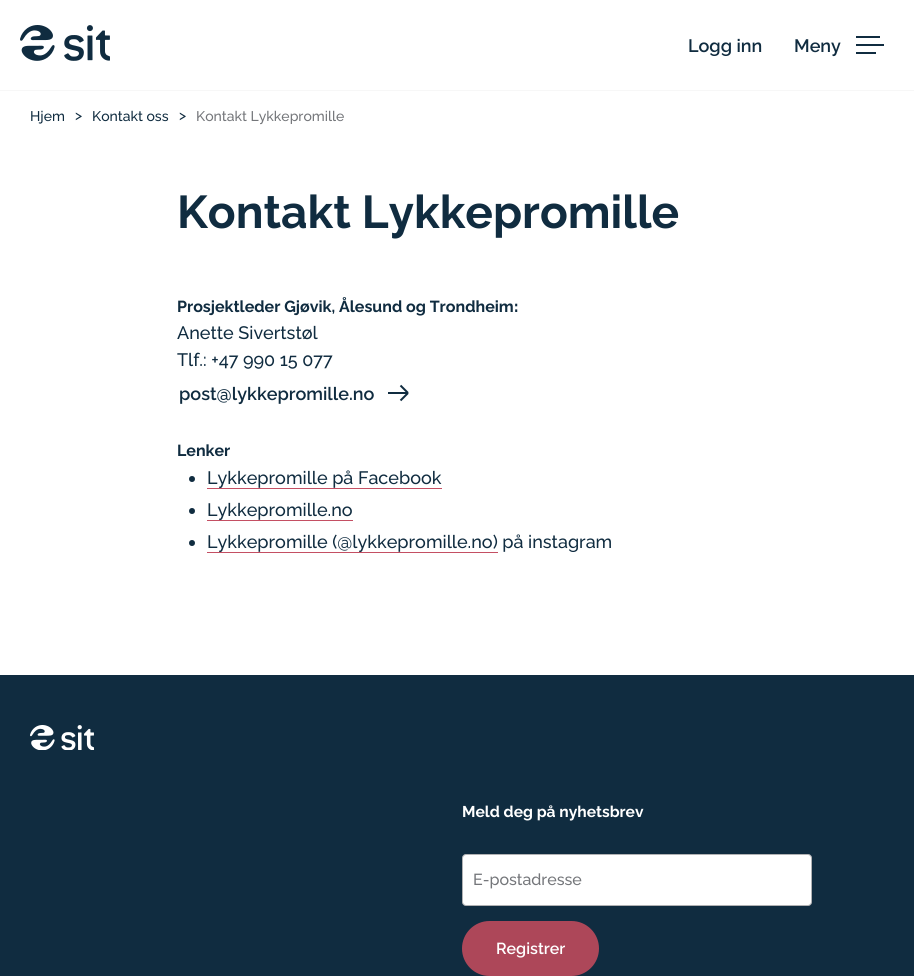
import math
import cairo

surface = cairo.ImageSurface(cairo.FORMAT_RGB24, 914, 976)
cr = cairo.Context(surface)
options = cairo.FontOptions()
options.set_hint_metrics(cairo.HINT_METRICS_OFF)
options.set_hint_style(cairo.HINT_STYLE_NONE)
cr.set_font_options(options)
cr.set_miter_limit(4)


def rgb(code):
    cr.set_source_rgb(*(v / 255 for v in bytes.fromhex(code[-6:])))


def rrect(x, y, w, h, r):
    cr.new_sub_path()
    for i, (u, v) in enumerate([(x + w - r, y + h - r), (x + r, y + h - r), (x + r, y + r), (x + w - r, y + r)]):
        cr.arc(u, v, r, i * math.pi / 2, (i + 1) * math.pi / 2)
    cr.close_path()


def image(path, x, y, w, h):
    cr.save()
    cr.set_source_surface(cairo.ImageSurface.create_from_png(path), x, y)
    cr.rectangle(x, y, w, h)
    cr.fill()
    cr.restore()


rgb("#ffffff")
cr.paint()
rgb("#f7f7f7")
cr.rectangle(0, 90, 914, 1)
cr.fill()
image("img/1.png", 20, 25, 90, 36)
for x, y, w, h, color in [
    (856, 36, 24, 2, "#102c40"),
    (856, 44, 28, 2, "#102c40"),
    (856, 52, 20, 2, "#102c40"),
]:
    rgb(color)
    cr.rectangle(x, y, w, h)
    cr.fill()
cr.new_path()
cr.move_to(388, 393)
cr.line_to(408, 393)
cr.move_to(408, 393)
cr.line_to(400.5, 385.5)
cr.move_to(408, 393)
cr.line_to(400.5, 400.5)
cr.stroke()
cr.arc(192, 479, 3, 0, 2 * math.pi)
cr.fill()
rgb("#c44f63")
cr.rectangle(207, 488, 235, 1)
cr.fill()
rgb("#102c40")
cr.arc(192, 511, 3, 0, 2 * math.pi)
cr.fill()
rgb("#c44f63")
cr.rectangle(207, 520, 146, 1)
cr.fill()
rgb("#102c40")
cr.arc(192, 543, 3, 0, 2 * math.pi)
cr.fill()
rgb("#c44f63")
cr.rectangle(207, 552, 291, 1)
cr.fill()
rgb("#102c40")
cr.rectangle(0, 675, 914, 301)
cr.fill()
image("img/2.png", 30, 725, 64, 25)
rgb("#ffffff")
rrect(462.5, 854.5, 349, 51, 3.5)
cr.fill_preserve()
rgb("#b0b1b3")
cr.set_line_width(1)
cr.stroke()
rgb("#ad4759")
rrect(463, 922, 135, 53, 26.5)
cr.fill_preserve()
cr.set_line_width(2)
cr.stroke()
cr.select_font_face("Raleway SemiBold")
cr.set_font_size(18)
rgb("#102c40")
cr.move_to(688, 52)
cr.show_text("Logg inn")
cr.move_to(794, 52)
cr.show_text("Meny")
cr.select_font_face("Raleway Medium")
cr.set_font_size(14)
for x, y, s in [
    (30, 121, "Hjem"),
    (75, 120, ">"),
    (92, 121, "Kontakt oss"),
    (179, 120, ">"),
]:
    cr.move_to(x, y)
    cr.show_text(s)
rgb("#74767a")
cr.move_to(196, 121)
cr.show_text("Kontakt Lykkepromille")
cr.select_font_face("Raleway", cairo.FONT_SLANT_NORMAL, cairo.FONT_WEIGHT_BOLD)
cr.set_font_size(46)
rgb("#102c40")
cr.move_to(177, 228)
cr.show_text("Kontakt Lykkepromille")
cr.set_font_size(16)
cr.move_to(177, 312)
cr.show_text("Prosjektleder Gjøvik, Ålesund og Trondheim")
cr.select_font_face("Raleway ExtraBold")
cr.move_to(514, 312)
cr.show_text(":")
cr.select_font_face("Raleway Medium")
cr.set_font_size(18)
cr.move_to(177, 339)
cr.show_text("Anette Sivertstøl")
cr.move_to(177, 366)
cr.show_text("Tlf.: +47 990 15 077")
cr.select_font_face("Raleway SemiBold")
cr.move_to(179, 400)
cr.show_text("post@lykkepromille.no")
cr.select_font_face("Raleway", cairo.FONT_SLANT_NORMAL, cairo.FONT_WEIGHT_BOLD)
cr.set_font_size(16)
cr.move_to(177, 456)
cr.show_text("Lenker")
cr.select_font_face("Raleway Medium")
cr.set_font_size(18)
for x, y, s in [
    (207, 484, "Lykkepromille på Facebook"),
    (207, 516, "Lykkepromille.no"),
    (207, 548, "Lykkepromille (@lykkepromille.no) på instagram"),
]:
    cr.move_to(x, y)
    cr.show_text(s)
cr.select_font_face("Raleway", cairo.FONT_SLANT_NORMAL, cairo.FONT_WEIGHT_BOLD)
cr.set_font_size(15.6)
rgb("#ffffff")
cr.move_to(462, 817)
cr.show_text("Meld deg på nyhetsbrev")
cr.select_font_face("Raleway Medium")
cr.set_font_size(16)
rgb("#74767a")
cr.move_to(473, 885)
cr.show_text("E-postadresse")
cr.select_font_face("Raleway SemiBold")
rgb("#ffffff")
cr.move_to(496, 954)
cr.show_text("Registrer")
surface.write_to_png("page.png")
